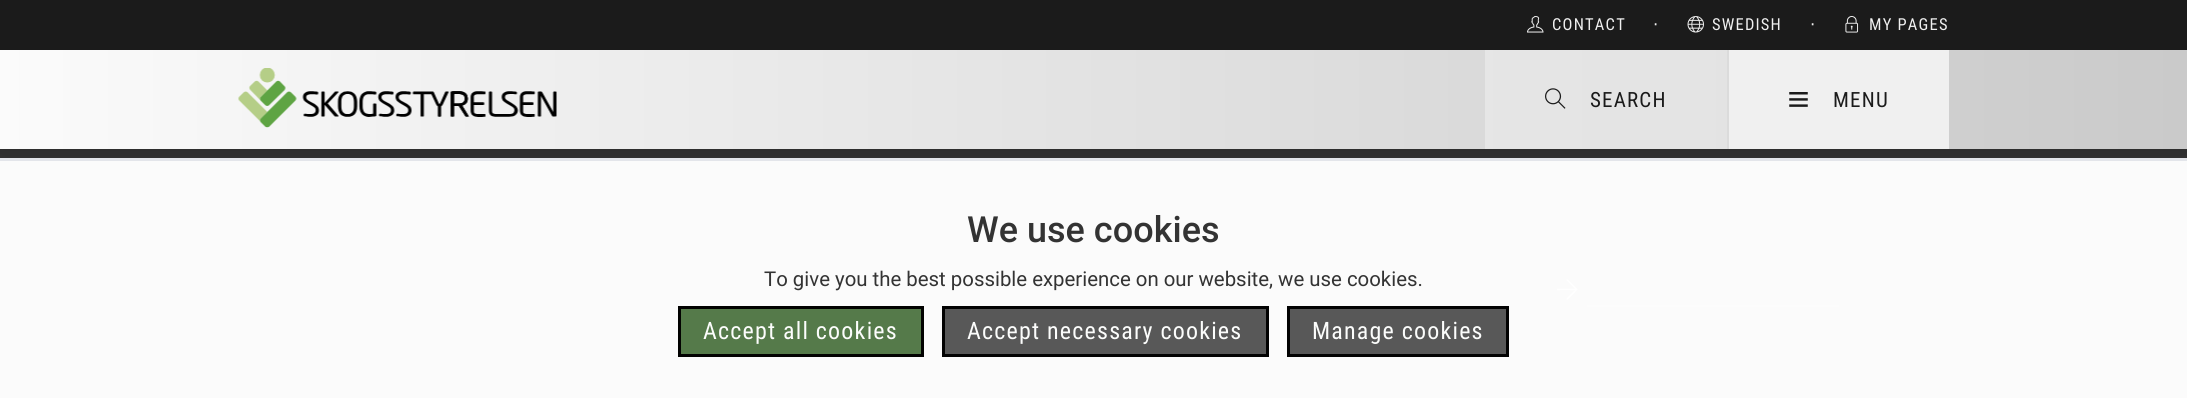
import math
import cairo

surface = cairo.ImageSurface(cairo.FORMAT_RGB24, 2187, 398)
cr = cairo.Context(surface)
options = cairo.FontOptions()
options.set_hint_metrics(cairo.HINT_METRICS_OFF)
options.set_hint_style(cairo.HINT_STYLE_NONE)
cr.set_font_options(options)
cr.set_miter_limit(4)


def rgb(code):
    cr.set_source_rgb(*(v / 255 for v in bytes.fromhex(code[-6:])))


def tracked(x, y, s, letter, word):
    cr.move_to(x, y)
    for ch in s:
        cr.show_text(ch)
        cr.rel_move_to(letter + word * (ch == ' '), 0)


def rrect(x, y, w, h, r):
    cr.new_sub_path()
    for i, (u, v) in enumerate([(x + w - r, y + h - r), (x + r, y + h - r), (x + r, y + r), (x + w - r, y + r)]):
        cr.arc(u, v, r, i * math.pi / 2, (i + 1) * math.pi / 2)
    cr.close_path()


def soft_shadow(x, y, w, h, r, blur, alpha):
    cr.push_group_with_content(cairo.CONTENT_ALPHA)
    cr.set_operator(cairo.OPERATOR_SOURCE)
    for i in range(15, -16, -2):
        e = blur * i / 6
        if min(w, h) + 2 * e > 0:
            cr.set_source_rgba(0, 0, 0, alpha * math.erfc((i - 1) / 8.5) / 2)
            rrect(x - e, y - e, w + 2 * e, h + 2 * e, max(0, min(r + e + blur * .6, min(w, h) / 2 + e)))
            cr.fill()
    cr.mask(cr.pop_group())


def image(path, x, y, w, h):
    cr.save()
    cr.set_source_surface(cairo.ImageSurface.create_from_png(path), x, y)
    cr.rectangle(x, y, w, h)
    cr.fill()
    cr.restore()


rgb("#333333")
cr.paint()
image("img/7.png", 43, 174, 2080, 224)
rgb("#000000")
soft_shadow(0, 0, 2187, 149, 0, 15, 0.2)
rgb("#1b1b1b")
cr.rectangle(0, 0, 2187, 50)
cr.fill()
image("img/1.png", 1527, 16, 17, 17)
image("img/2.png", 1687, 16, 17, 17)
image("img/3.png", 1845, 16, 14, 17)
gradient = cairo.LinearGradient(0, 99, 2187, 99)
gradient.add_color_stop_rgba(0, 0.984, 0.984, 0.984, 1)
gradient.add_color_stop_rgba(1, 0.792, 0.792, 0.792, 1)
cr.set_source(gradient)
cr.rectangle(0, 50, 2187, 99)
cr.fill()
image("img/4.png", 238, 68, 319, 60)
cr.set_source_rgba(0.941, 0.941, 0.941, 0.56)
cr.rectangle(1485, 50, 242, 99)
cr.fill()
image("img/5.png", 1545, 88, 21, 21)
rgb("#f0f0f0")
cr.rectangle(1729, 50, 220, 99)
cr.fill()
rgb("#dbdbdb")
cr.rectangle(1727, 50, 2, 99)
cr.fill()
image("img/6.png", 1789, 92, 19, 15)
image("img/8.png", 1556, 279, 22, 21)
rgb("#5d5d5d")
cr.rectangle(1587, 305, 252, 2)
cr.fill()
cr.set_source_rgba(1, 1, 1, 0.98)
cr.rectangle(0, 161, 2187, 237)
cr.fill()
rgb("#e3e5ea")
cr.rectangle(0, 158, 2187, 3)
cr.fill()
rgb("#557a4a")
cr.rectangle(679.5, 307.5, 243, 48)
cr.fill_preserve()
rgb("#020201")
cr.set_line_width(3)
cr.stroke()
rgb("#585858")
cr.rectangle(943.5, 307.5, 324, 48)
cr.fill_preserve()
rgb("#020202")
cr.stroke()
rgb("#585858")
cr.rectangle(1288.5, 307.5, 219, 48)
cr.fill_preserve()
rgb("#020202")
cr.stroke()
cr.select_font_face("Roboto Condensed")
cr.set_font_size(16.5)
rgb("#f0f0f0")
tracked(1552, 30, "CONTACT", 1.2, 0)
cr.select_font_face("DejaVu Sans")
tracked(1653, 30, "⋅", 1.2, 0)
cr.select_font_face("Roboto Condensed")
tracked(1712, 30, "SWEDISH", 1.2, 0)
cr.select_font_face("DejaVu Sans")
tracked(1810, 30, "⋅", 1.2, 0)
cr.select_font_face("Roboto Condensed")
tracked(1869, 30, "MY PAGES", 1.2, 0)
cr.set_font_size(21)
rgb("#1b1b1b")
tracked(1590, 107, "SEARCH", 1.2, 0)
tracked(1833, 107, "MENU", 1.2, 0)
cr.select_font_face("Roboto Medium")
cr.set_font_size(36)
rgb("#333333")
cr.move_to(967, 242)
cr.show_text("We use cookies")
cr.select_font_face("Roboto")
cr.set_font_size(20.4)
cr.move_to(764, 286)
cr.show_text("To give you the best possible experience on our website, we use cookies.")
cr.select_font_face("Roboto Condensed")
cr.set_font_size(24)
rgb("#fcfdfc")
for x, y, s in [
    (703, 339, "Accept all cookies"),
    (967, 339, "Accept necessary cookies"),
    (1312, 339, "Manage cookies"),
]:
    tracked(x, y, s, 1.2, 0)
surface.write_to_png("page.png")
